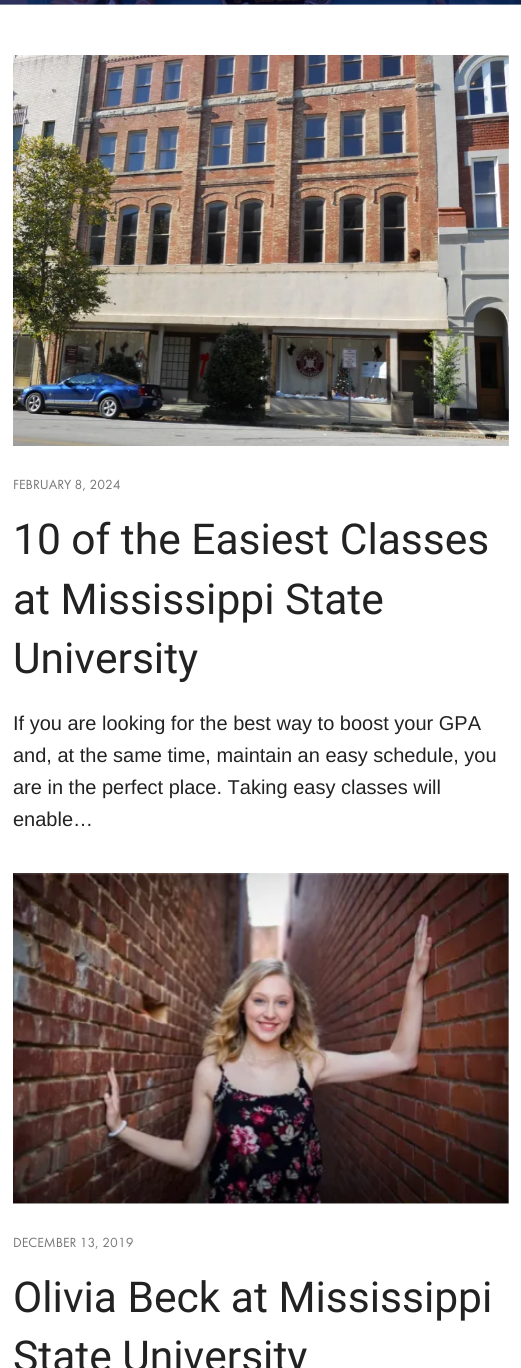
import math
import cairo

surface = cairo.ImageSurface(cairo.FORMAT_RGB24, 521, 1368)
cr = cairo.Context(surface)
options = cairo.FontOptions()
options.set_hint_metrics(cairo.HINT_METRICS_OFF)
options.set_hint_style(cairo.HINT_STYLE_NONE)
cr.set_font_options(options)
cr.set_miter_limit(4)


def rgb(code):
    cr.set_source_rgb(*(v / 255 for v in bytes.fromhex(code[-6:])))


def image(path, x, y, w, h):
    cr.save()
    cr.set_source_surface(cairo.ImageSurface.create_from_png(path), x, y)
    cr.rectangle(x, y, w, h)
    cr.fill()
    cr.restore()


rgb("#ffffff")
cr.paint()
image("img/1.png", 0, 0, 521, 5)
image("img/2.png", 13, 55, 496, 391)
image("img/3.png", 13, 873, 496, 331)
cr.select_font_face("Futura PT")
cr.set_font_size(13.75)
rgb("#767676")
cr.move_to(13, 489)
cr.show_text("FEBRUARY 8, 2024")
cr.select_font_face("Roboto")
cr.set_font_size(42.5)
rgb("#222222")
for x, y, s in [
    (13, 554, "10 of the Easiest Classes"),
    (13, 614, "at Mississippi State"),
    (13, 673, "University"),
]:
    cr.move_to(x, y)
    cr.show_text(s)
cr.select_font_face("Liberation Sans")
cr.set_font_size(20)
for x, y, s in [
    (13, 730, "If you are looking for the best way to boost your GPA"),
    (13, 762, "and, at the same time, maintain an easy schedule, you"),
    (13, 794, "are in the perfect place. Taking easy classes will"),
    (13, 826, "enable…"),
]:
    cr.move_to(x, y)
    cr.show_text(s)
cr.select_font_face("Futura PT")
cr.set_font_size(13.75)
rgb("#767676")
cr.move_to(13, 1247)
cr.show_text("DECEMBER 13, 2019")
cr.select_font_face("Roboto")
cr.set_font_size(42.5)
rgb("#222222")
cr.move_to(13, 1312)
cr.show_text("Olivia Beck at Mississippi")
cr.move_to(13, 1371)
cr.show_text("State University")
surface.write_to_png("page.png")
